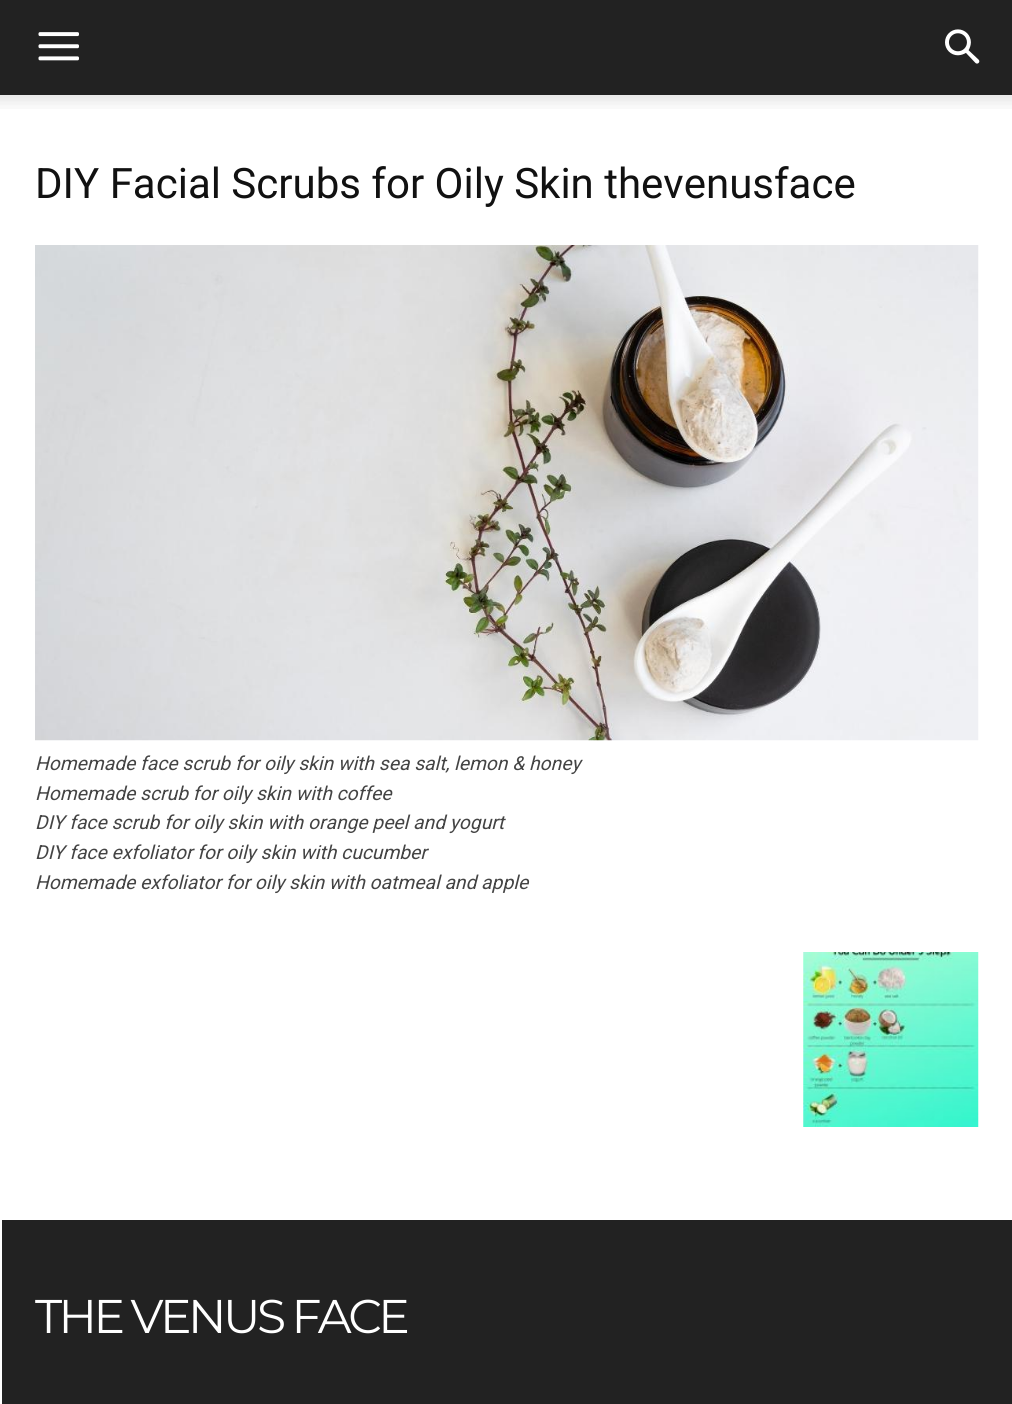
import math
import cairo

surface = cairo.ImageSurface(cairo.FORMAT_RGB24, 1012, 1404)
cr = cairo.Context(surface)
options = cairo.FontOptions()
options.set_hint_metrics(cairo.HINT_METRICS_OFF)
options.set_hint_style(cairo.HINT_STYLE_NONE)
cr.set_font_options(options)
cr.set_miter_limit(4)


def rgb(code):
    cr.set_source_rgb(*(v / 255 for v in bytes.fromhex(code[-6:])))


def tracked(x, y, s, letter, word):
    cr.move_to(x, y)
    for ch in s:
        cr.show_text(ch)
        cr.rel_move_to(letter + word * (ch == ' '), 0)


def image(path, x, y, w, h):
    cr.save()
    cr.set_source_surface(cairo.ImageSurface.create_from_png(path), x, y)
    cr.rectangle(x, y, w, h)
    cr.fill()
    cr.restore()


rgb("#ffffff")
cr.paint()
rgb("#222222")
cr.rectangle(0, 0, 1012, 95)
cr.fill()
image("img/1.png", 38, 32, 41, 29)
image("img/2.png", 945, 29, 35, 35)
image("img/3.png", 0, 95, 1012, 14)
image("img/4.png", 35, 245, 944, 496)
image("img/5.png", 803, 952, 176, 175)
cr.rectangle(2, 1220, 1010, 184)
cr.fill()
cr.select_font_face("Roboto")
cr.set_font_size(42)
rgb("#111111")
cr.move_to(35, 198)
cr.show_text("DIY Facial Scrubs for Oily Skin thevenusface")
cr.select_font_face("Roboto", cairo.FONT_SLANT_ITALIC)
cr.set_font_size(19.25)
rgb("#444444")
for x, y, s in [
    (35, 770, "Homemade face scrub for oily skin with sea salt, lemon & honey"),
    (35, 800, "Homemade scrub for oily skin with coffee"),
    (35, 829, "DIY face scrub for oily skin with orange peel and yogurt"),
    (35, 859, "DIY face exfoliator for oily skin with cucumber"),
    (35, 889, "Homemade exfoliator for oily skin with oatmeal and apple"),
]:
    cr.move_to(x, y)
    cr.show_text(s)
cr.select_font_face("Montserrat Thin")
cr.set_font_size(47.25)
rgb("#ffffff")
tracked(35, 1333, "THE VENUS FACE", -3.5, 0)
surface.write_to_png("page.png")
